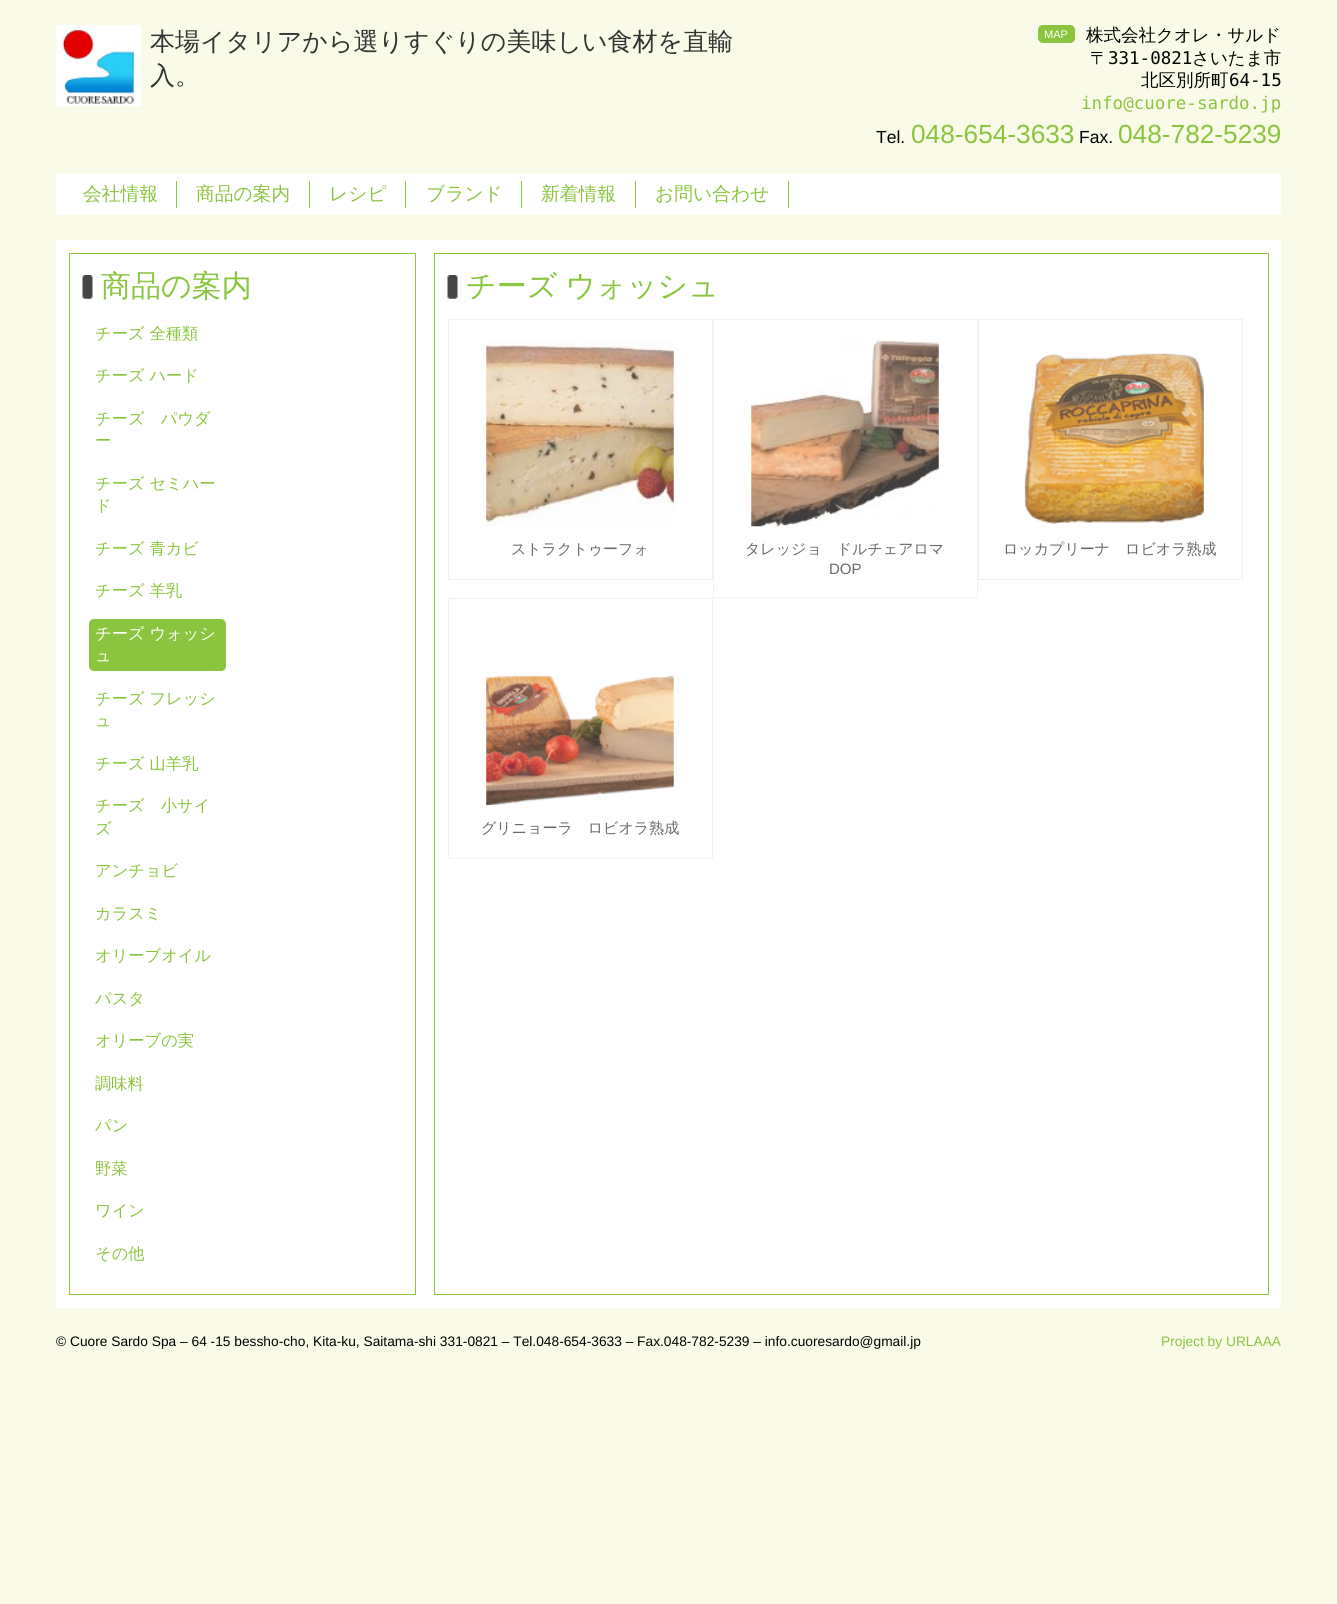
import math
import cairo

surface = cairo.ImageSurface(cairo.FORMAT_RGB24, 1337, 1604)
cr = cairo.Context(surface)
options = cairo.FontOptions()
options.set_hint_metrics(cairo.HINT_METRICS_OFF)
options.set_hint_style(cairo.HINT_STYLE_NONE)
cr.set_font_options(options)
cr.set_miter_limit(4)


def rgb(code):
    cr.set_source_rgb(*(v / 255 for v in bytes.fromhex(code[-6:])))


def tracked(x, y, s, letter, word):
    cr.move_to(x, y)
    for ch in s:
        cr.show_text(ch)
        cr.rel_move_to(letter + word * (ch == ' '), 0)


def rrect(x, y, w, h, r):
    cr.new_sub_path()
    for i, (u, v) in enumerate([(x + w - r, y + h - r), (x + r, y + h - r), (x + r, y + r), (x + w - r, y + r)]):
        cr.arc(u, v, r, i * math.pi / 2, (i + 1) * math.pi / 2)
    cr.close_path()


def image(path, x, y, w, h):
    cr.save()
    cr.set_source_surface(cairo.ImageSurface.create_from_png(path), x, y)
    cr.rectangle(x, y, w, h)
    cr.fill()
    cr.restore()


rgb("#fafae8")
cr.paint()
image("img/1.png", 56, 25, 86, 82)
rgb("#8bc53f")
rrect(1038, 25, 37, 18, 5)
cr.fill()
for x, y, w, h, color in [
    (56, 174, 1225, 41, "#ffffff"),
    (176, 181, 1, 27, "#8bc53f"),
    (309, 181, 1, 27, "#8bc53f"),
    (405, 181, 1, 27, "#8bc53f"),
    (521, 181, 1, 27, "#8bc53f"),
    (635, 181, 1, 27, "#8bc53f"),
    (788, 181, 1, 27, "#8bc53f"),
    (56, 240, 1225, 1068, "#ffffff"),
]:
    rgb(color)
    cr.rectangle(x, y, w, h)
    cr.fill()
cr.rectangle(69.5, 253.5, 346, 1041)
rgb("#8bc53f")
cr.set_line_width(1)
cr.stroke()
image("img/2.png", 82, 275, 11, 24)
rrect(89, 619, 137, 52, 5)
cr.fill()
cr.rectangle(434.5, 253.5, 834, 1041)
cr.stroke()
image("img/2.png", 447, 275, 11, 24)
cr.rectangle(448.5, 319.5, 264, 260)
rgb("#f1f1f1")
cr.stroke()
image("img/3.png", 486, 339, 188, 187)
cr.rectangle(713.5, 319.5, 264, 278)
cr.stroke()
image("img/4.png", 751, 339, 188, 188)
cr.rectangle(978.5, 319.5, 264, 260)
cr.stroke()
image("img/5.png", 1024, 353, 180, 171)
cr.rectangle(448.5, 598.5, 264, 260)
cr.stroke()
image("img/6.png", 486, 675, 188, 130)
cr.select_font_face("WenQuanYi Zen Hei Medium")
cr.set_font_size(25)
rgb("#333333")
cr.move_to(150, 50)
cr.show_text("本場イタリアから選りすぐりの美味しい食材を直輸")
cr.move_to(150, 84)
cr.show_text("入。")
cr.select_font_face("Liberation Sans")
cr.set_font_size(11)
rgb("#ffffff")
cr.move_to(1044, 38)
cr.show_text("MAP")
cr.select_font_face("WenQuanYi Zen Hei Medium")
cr.set_font_size(17.5)
rgb("#000000")
cr.move_to(1086, 41)
cr.show_text("株式会社クオレ・サルド")
cr.move_to(1090, 64)
cr.show_text("〒")
cr.select_font_face("DejaVu Sans Mono")
cr.move_to(1108, 64)
cr.show_text("331-0821")
cr.select_font_face("WenQuanYi Zen Hei Medium")
cr.move_to(1192, 64)
cr.show_text("さいたま市")
cr.move_to(1141, 86)
cr.show_text("北区別所町")
cr.select_font_face("DejaVu Sans Mono")
cr.move_to(1229, 86)
cr.show_text("64-15")
rgb("#8bc53f")
cr.move_to(1081, 109)
cr.show_text("info@cuore-sardo.jp")
cr.select_font_face("Liberation Sans")
rgb("#000000")
cr.move_to(876, 143)
cr.show_text("Tel.")
cr.set_font_size(26.25)
rgb("#8bc53f")
cr.move_to(911, 143)
cr.show_text("048-654-3633")
cr.set_font_size(17.5)
rgb("#000000")
cr.move_to(1079, 143)
cr.show_text("Fax.")
cr.set_font_size(26.25)
rgb("#8bc53f")
cr.move_to(1118, 143)
cr.show_text("048-782-5239")
cr.select_font_face("WenQuanYi Zen Hei Medium")
cr.set_font_size(18.75)
for x, y, s in [
    (83, 200, "会社情報"),
    (196, 200, "商品の案内"),
    (329, 200, "レシピ"),
    (426, 200, "ブランド"),
    (541, 200, "新着情報"),
    (655, 200, "お問い合わせ"),
]:
    cr.move_to(x, y)
    cr.show_text(s)
cr.set_font_size(30)
cr.move_to(101, 296)
cr.show_text("商品の案内")
cr.set_font_size(16.25)
for x, y, s in [
    (95, 339, "チーズ 全種類"),
    (95, 381, "チーズ ハード"),
    (95, 424, "チーズ　パウダ"),
    (95, 446, "ー"),
    (95, 489, "チーズ セミハー"),
    (95, 511, "ド"),
    (95, 554, "チーズ 青カビ"),
    (95, 596, "チーズ 羊乳"),
]:
    cr.move_to(x, y)
    cr.show_text(s)
rgb("#ffffff")
cr.move_to(95, 639)
cr.show_text("チーズ ウォッシ")
cr.move_to(95, 661)
cr.show_text("ュ")
rgb("#8bc53f")
for x, y, s in [
    (95, 704, "チーズ フレッシ"),
    (95, 726, "ュ"),
    (95, 769, "チーズ 山羊乳"),
    (95, 811, "チーズ　小サイ"),
    (95, 834, "ズ"),
    (95, 876, "アンチョビ"),
    (95, 919, "カラスミ"),
    (95, 961, "オリーブオイル"),
    (95, 1004, "パスタ"),
    (95, 1046, "オリーブの実"),
    (95, 1089, "調味料"),
    (95, 1131, "パン"),
    (95, 1174, "野菜"),
    (95, 1216, "ワイン"),
    (95, 1259, "その他"),
]:
    cr.move_to(x, y)
    cr.show_text(s)
cr.set_font_size(30)
tracked(466, 296, "チーズ ウォッシュ", 0, -1)
cr.set_font_size(15)
rgb("#696969")
cr.move_to(511, 554)
cr.show_text("ストラクトゥーフォ")
cr.move_to(745, 554)
cr.show_text("タレッジョ　ドルチェアロマ")
cr.select_font_face("Liberation Sans")
cr.move_to(829, 574)
cr.show_text("DOP")
cr.select_font_face("WenQuanYi Zen Hei Medium")
cr.move_to(1003, 554)
cr.show_text("ロッカプリーナ　ロビオラ熟成")
cr.move_to(481, 833)
cr.show_text("グリニョーラ　ロビオラ熟成")
cr.select_font_face("Liberation Sans")
cr.set_font_size(13.75)
rgb("#000000")
cr.move_to(56, 1346)
cr.show_text("© Cuore Sardo Spa – 64 -15 bessho-cho, Kita-ku, Saitama-shi 331-0821 – Tel.048-654-3633 – Fax.048-782-5239 – info.cuoresardo@gmail.jp")
rgb("#8bc53f")
cr.move_to(1161, 1346)
cr.show_text("Project by URLAAA")
surface.write_to_png("page.png")
